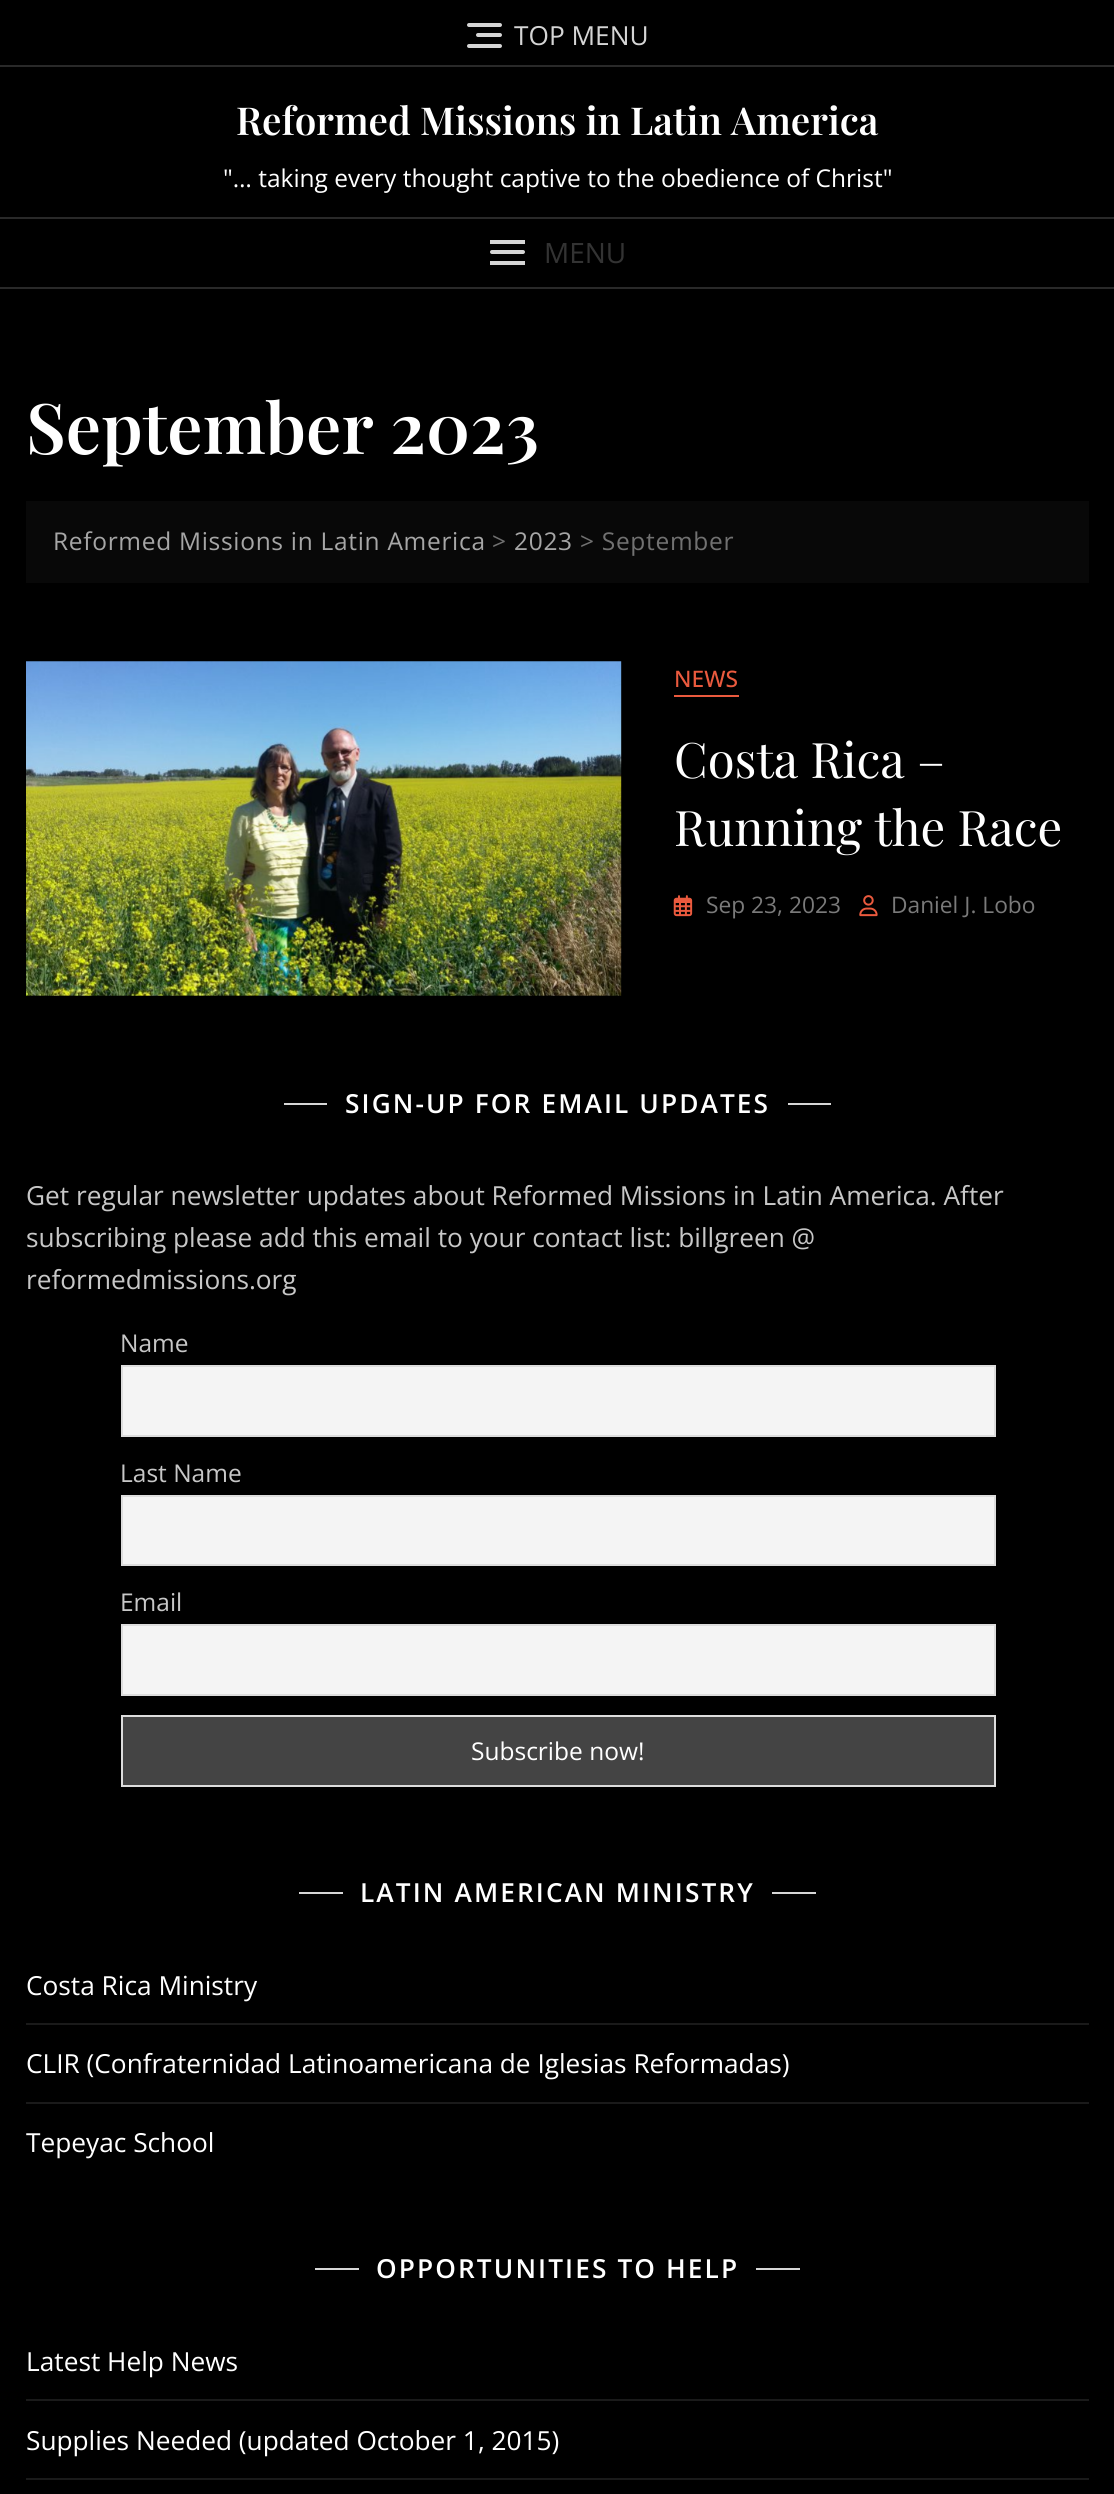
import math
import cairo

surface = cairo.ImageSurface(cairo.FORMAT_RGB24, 1114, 2494)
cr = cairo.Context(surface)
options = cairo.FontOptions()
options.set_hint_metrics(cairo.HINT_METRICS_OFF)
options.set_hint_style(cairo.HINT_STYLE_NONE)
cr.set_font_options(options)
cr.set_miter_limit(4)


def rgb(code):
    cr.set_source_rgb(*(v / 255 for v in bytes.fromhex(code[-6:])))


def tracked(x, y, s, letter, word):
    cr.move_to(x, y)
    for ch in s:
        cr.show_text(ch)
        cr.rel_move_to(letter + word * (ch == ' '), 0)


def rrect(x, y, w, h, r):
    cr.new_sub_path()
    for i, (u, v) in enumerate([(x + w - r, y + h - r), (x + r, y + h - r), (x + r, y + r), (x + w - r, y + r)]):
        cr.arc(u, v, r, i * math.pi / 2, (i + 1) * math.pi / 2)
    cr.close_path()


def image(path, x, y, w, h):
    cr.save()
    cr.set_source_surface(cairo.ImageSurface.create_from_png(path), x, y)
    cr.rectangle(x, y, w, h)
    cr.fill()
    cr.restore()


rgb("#000000")
cr.paint()
rgb("#292929")
cr.rectangle(0, 65, 1114, 2)
cr.fill()
rgb("#d5d5d5")
rrect(476, 33, 26, 4, 2)
cr.fill()
rrect(467, 23, 35, 4, 2)
cr.fill()
rrect(467, 44, 35, 4, 2)
cr.fill()
rgb("#292929")
cr.rectangle(0, 217, 1114, 2)
cr.fill()
rgb("#d5d5d5")
rrect(490, 250, 35, 4, 2)
cr.fill()
for x, y, w, h, color in [
    (490, 240, 35, 4, "#d5d5d5"),
    (490, 261, 35, 4, "#d5d5d5"),
    (0, 287, 1114, 2, "#292929"),
    (26, 501, 1063, 82, "#080808"),
]:
    rgb(color)
    cr.rectangle(x, y, w, h)
    cr.fill()
image("img/1.png", 26, 661, 596, 335)
rgb("#eb5a3e")
cr.rectangle(674, 695, 65, 2)
cr.fill()
image("img/2.png", 673, 895, 20, 22)
image("img/3.png", 859, 895, 19, 22)
rgb("#d6d6d6")
cr.rectangle(284, 1103, 43, 2)
cr.fill()
cr.rectangle(788, 1103, 43, 2)
cr.fill()
rgb("#f4f4f4")
cr.rectangle(122, 1366, 873, 70)
cr.fill_preserve()
rgb("#dddddd")
cr.stroke()
rgb("#f4f4f4")
cr.rectangle(122, 1496, 873, 69)
cr.fill_preserve()
rgb("#dddddd")
cr.stroke()
rgb("#f4f4f4")
cr.rectangle(122, 1625, 873, 70)
cr.fill_preserve()
rgb("#dddddd")
cr.stroke()
rgb("#444444")
cr.rectangle(122, 1716, 873, 70)
cr.fill_preserve()
rgb("#dddddd")
cr.stroke()
for x, y, w, h, color in [
    (299, 1892, 44, 2, "#d6d6d6"),
    (772, 1892, 44, 2, "#d6d6d6"),
    (26, 2023, 1063, 2, "#1a1a1a"),
    (26, 2102, 1063, 2, "#1a1a1a"),
    (315, 2268, 44, 2, "#d6d6d6"),
    (756, 2268, 44, 2, "#d6d6d6"),
    (26, 2399, 1063, 2, "#1a1a1a"),
    (26, 2478, 1063, 2, "#1a1a1a"),
]:
    rgb(color)
    cr.rectangle(x, y, w, h)
    cr.fill()
cr.select_font_face("Open Sans")
cr.set_font_size(26.25)
rgb("#d5d5d5")
cr.move_to(514, 45)
cr.show_text("TOP MENU")
cr.select_font_face("Playfair Display SemiBold")
cr.set_font_size(38.5)
rgb("#ffffff")
cr.move_to(236, 135)
cr.show_text("Reformed Missions in Latin America")
cr.select_font_face("Open Sans")
cr.set_font_size(24.5)
cr.move_to(223, 187)
cr.show_text("\"… taking every thought captive to the obedience of Christ\"")
cr.set_font_size(28)
rgb("#333333")
cr.move_to(544, 263)
cr.show_text("MENU")
cr.select_font_face("Playfair Display SemiBold")
cr.set_font_size(70)
rgb("#ffffff")
cr.move_to(26, 454)
cr.show_text("September 2023")
cr.select_font_face("Open Sans")
cr.set_font_size(24.5)
rgb("#a6a6a6")
tracked(53, 550, "Reformed Missions in Latin America", 0.7, 0)
rgb("#717171")
tracked(492, 550, ">", 0.7, 0)
rgb("#a6a6a6")
tracked(514, 550, "2023", 0.7, 0)
rgb("#717171")
tracked(580, 550, "> September", 0.7, 0)
cr.select_font_face("Open Sans Medium")
cr.set_font_size(22.75)
rgb("#eb5a3e")
cr.move_to(674, 687)
cr.show_text("NEWS")
cr.select_font_face("Playfair Display")
cr.set_font_size(49)
rgb("#ffffff")
cr.move_to(674, 778)
cr.show_text("Costa Rica –")
cr.move_to(674, 846)
cr.show_text("Running the Race")
cr.select_font_face("Open Sans")
cr.set_font_size(22.75)
rgb("#7a7a7a")
cr.move_to(706, 913)
cr.show_text("Sep 23, 2023")
cr.move_to(891, 913)
cr.show_text("Daniel J. Lobo")
cr.select_font_face("Open Sans SemiBold")
cr.set_font_size(26.25)
rgb("#ffffff")
tracked(345, 1113, "SIGN-UP FOR EMAIL UPDATES", 2.1, 0)
cr.select_font_face("Open Sans")
rgb("#c7c7c7")
for x, y, s in [
    (26, 1205, "Get regular newsletter updates about Reformed Missions in Latin America. After"),
    (26, 1247, "subscribing please add this email to your contact list: billgreen @"),
    (26, 1289, "reformedmissions.org"),
]:
    cr.move_to(x, y)
    cr.show_text(s)
cr.set_font_size(24.5)
for x, y, s in [
    (120, 1352, "Name"),
    (120, 1482, "Last Name"),
    (120, 1611, "Email"),
]:
    cr.move_to(x, y)
    cr.show_text(s)
rgb("#ffffff")
cr.move_to(471, 1760)
cr.show_text("Subscribe now!")
cr.select_font_face("Open Sans SemiBold")
cr.set_font_size(26.25)
tracked(360, 1902, "LATIN AMERICAN MINISTRY", 2.1, 0)
cr.select_font_face("Open Sans")
for x, y, s in [
    (26, 1995, "Costa Rica Ministry"),
    (26, 2073, "CLIR (Confraternidad Latinoamericana de Iglesias Reformadas)"),
    (26, 2152, "Tepeyac School"),
]:
    cr.move_to(x, y)
    cr.show_text(s)
cr.select_font_face("Open Sans SemiBold")
tracked(376, 2278, "OPPORTUNITIES TO HELP", 2.1, 0)
cr.select_font_face("Open Sans")
cr.move_to(26, 2371)
cr.show_text("Latest Help News")
cr.move_to(26, 2450)
cr.show_text("Supplies Needed (updated October 1, 2015)")
surface.write_to_png("page.png")
